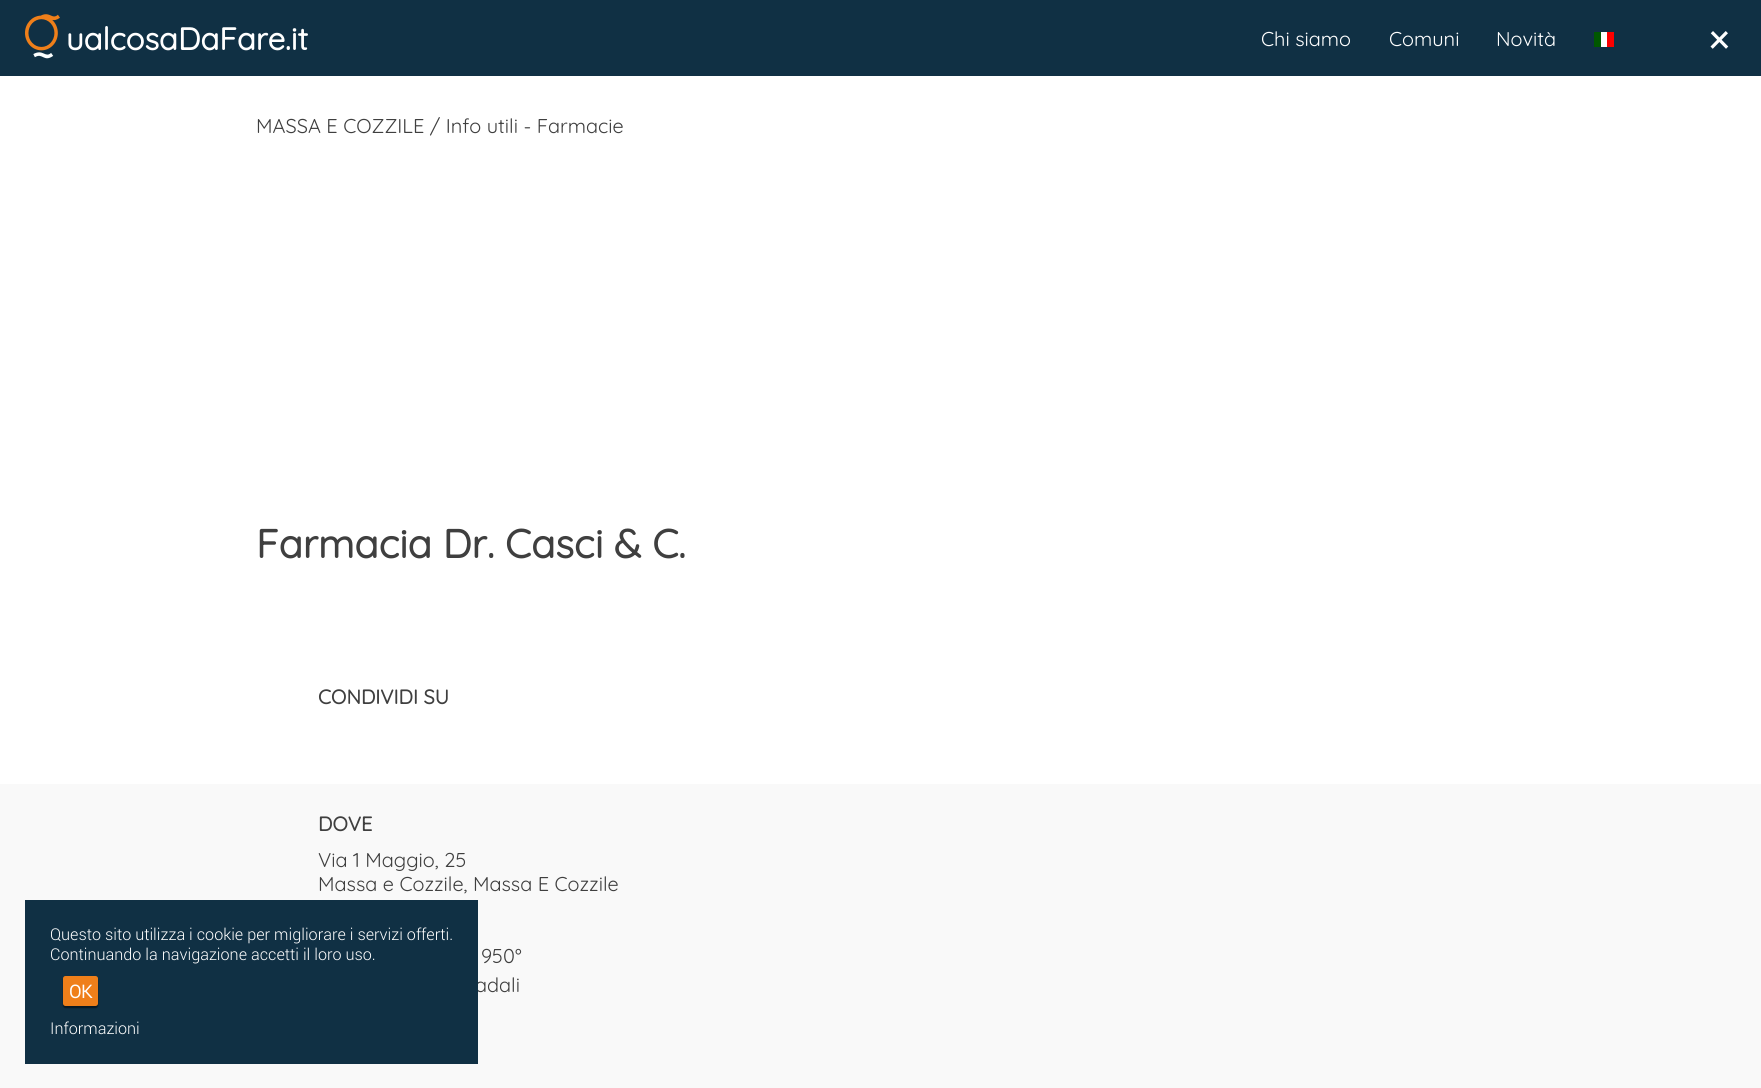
import math
import cairo

surface = cairo.ImageSurface(cairo.FORMAT_RGB24, 1761, 1088)
cr = cairo.Context(surface)
options = cairo.FontOptions()
options.set_hint_metrics(cairo.HINT_METRICS_OFF)
options.set_hint_style(cairo.HINT_STYLE_NONE)
cr.set_font_options(options)
cr.set_miter_limit(4)


def rgb(code):
    cr.set_source_rgb(*(v / 255 for v in bytes.fromhex(code[-6:])))


def rrect(x, y, w, h, r):
    cr.new_sub_path()
    for i, (u, v) in enumerate([(x + w - r, y + h - r), (x + r, y + h - r), (x + r, y + r), (x + w - r, y + r)]):
        cr.arc(u, v, r, i * math.pi / 2, (i + 1) * math.pi / 2)
    cr.close_path()


def soft_shadow(x, y, w, h, r, blur, alpha):
    cr.push_group_with_content(cairo.CONTENT_ALPHA)
    cr.set_operator(cairo.OPERATOR_SOURCE)
    for i in range(15, -16, -2):
        e = blur * i / 6
        if min(w, h) + 2 * e > 0:
            cr.set_source_rgba(0, 0, 0, alpha * math.erfc((i - 1) / 8.5) / 2)
            rrect(x - e, y - e, w + 2 * e, h + 2 * e, max(0, min(r + e + blur * .6, min(w, h) / 2 + e)))
            cr.fill()
    cr.mask(cr.pop_group())


def image(path, x, y, w, h):
    cr.save()
    cr.set_source_surface(cairo.ImageSurface.create_from_png(path), x, y)
    cr.rectangle(x, y, w, h)
    cr.fill()
    cr.restore()


rgb("#ffffff")
cr.paint()
rgb("#103044")
cr.rectangle(0, 0, 1761, 76)
cr.fill()
image("img/1.png", 25, 14, 35, 45)
for x, y, w, h, color in [
    (1601, 32, 6, 15, "#ffffff"),
    (1594, 32, 7, 15, "#005700"),
    (1607, 32, 7, 15, "#fc0000"),
    (0, 784, 1761, 304, "#f9f9f9"),
]:
    rgb(color)
    cr.rectangle(x, y, w, h)
    cr.fill()
cr.select_font_face("Quicksand", cairo.FONT_SLANT_NORMAL, cairo.FONT_WEIGHT_BOLD)
cr.set_font_size(31.25)
rgb("#ffffff")
cr.move_to(66, 50)
cr.show_text("ualcosaDaFare.it")
cr.select_font_face("Quicksand")
cr.set_font_size(20)
for x, y, s in [
    (1261, 46, "Chi siamo"),
    (1389, 46, "Comuni"),
    (1496, 46, "Novità"),
]:
    cr.move_to(x, y)
    cr.show_text(s)
cr.select_font_face("Roboto", cairo.FONT_SLANT_NORMAL, cairo.FONT_WEIGHT_BOLD)
cr.set_font_size(38)
cr.move_to(1709, 53)
cr.show_text("×")
cr.select_font_face("Quicksand")
cr.set_font_size(20)
rgb("#3f3f3f")
cr.move_to(256, 133)
cr.show_text("MASSA E COZZILE / Info utili - Farmacie")
cr.select_font_face("Quicksand", cairo.FONT_SLANT_NORMAL, cairo.FONT_WEIGHT_BOLD)
cr.set_font_size(40)
cr.move_to(256, 558)
cr.show_text("Farmacia Dr. Casci & C.")
cr.set_font_size(20)
cr.move_to(318, 704)
cr.show_text("CONDIVIDI SU")
cr.move_to(318, 831)
cr.show_text("DOVE")
cr.select_font_face("Quicksand")
for x, y, s in [
    (318, 867, "Via 1 Maggio, 25"),
    (318, 891, "Massa e Cozzile, Massa E Cozzile"),
    (481, 963, "950°"),
    (475, 992, "adali"),
]:
    cr.move_to(x, y)
    cr.show_text(s)
rgb("#103044")
cr.rectangle(25, 900, 453, 164)
cr.fill()
cr.select_font_face("Roboto Light")
cr.set_font_size(16.25)
rgb("#ffffff")
cr.move_to(50, 1034)
cr.show_text("Informazioni")
rgb("#000000")
soft_shadow(63, 978, 35, 30, 2.5, 0.5, 0.5)
rgb("#ef7f1a")
rrect(63, 976, 35, 30, 2.5)
cr.fill()
cr.select_font_face("Roboto", cairo.FONT_SLANT_NORMAL, cairo.FONT_WEIGHT_BOLD)
cr.set_font_size(18)
rgb("#ffffff")
cr.move_to(69, 998)
cr.show_text("OK")
cr.select_font_face("Roboto Light")
cr.set_font_size(16.25)
cr.move_to(50, 960)
cr.show_text("Continuando la navigazione accetti il loro uso.")
cr.move_to(50, 940)
cr.show_text("Questo sito utilizza i cookie per migliorare i servizi offerti.")
surface.write_to_png("page.png")
